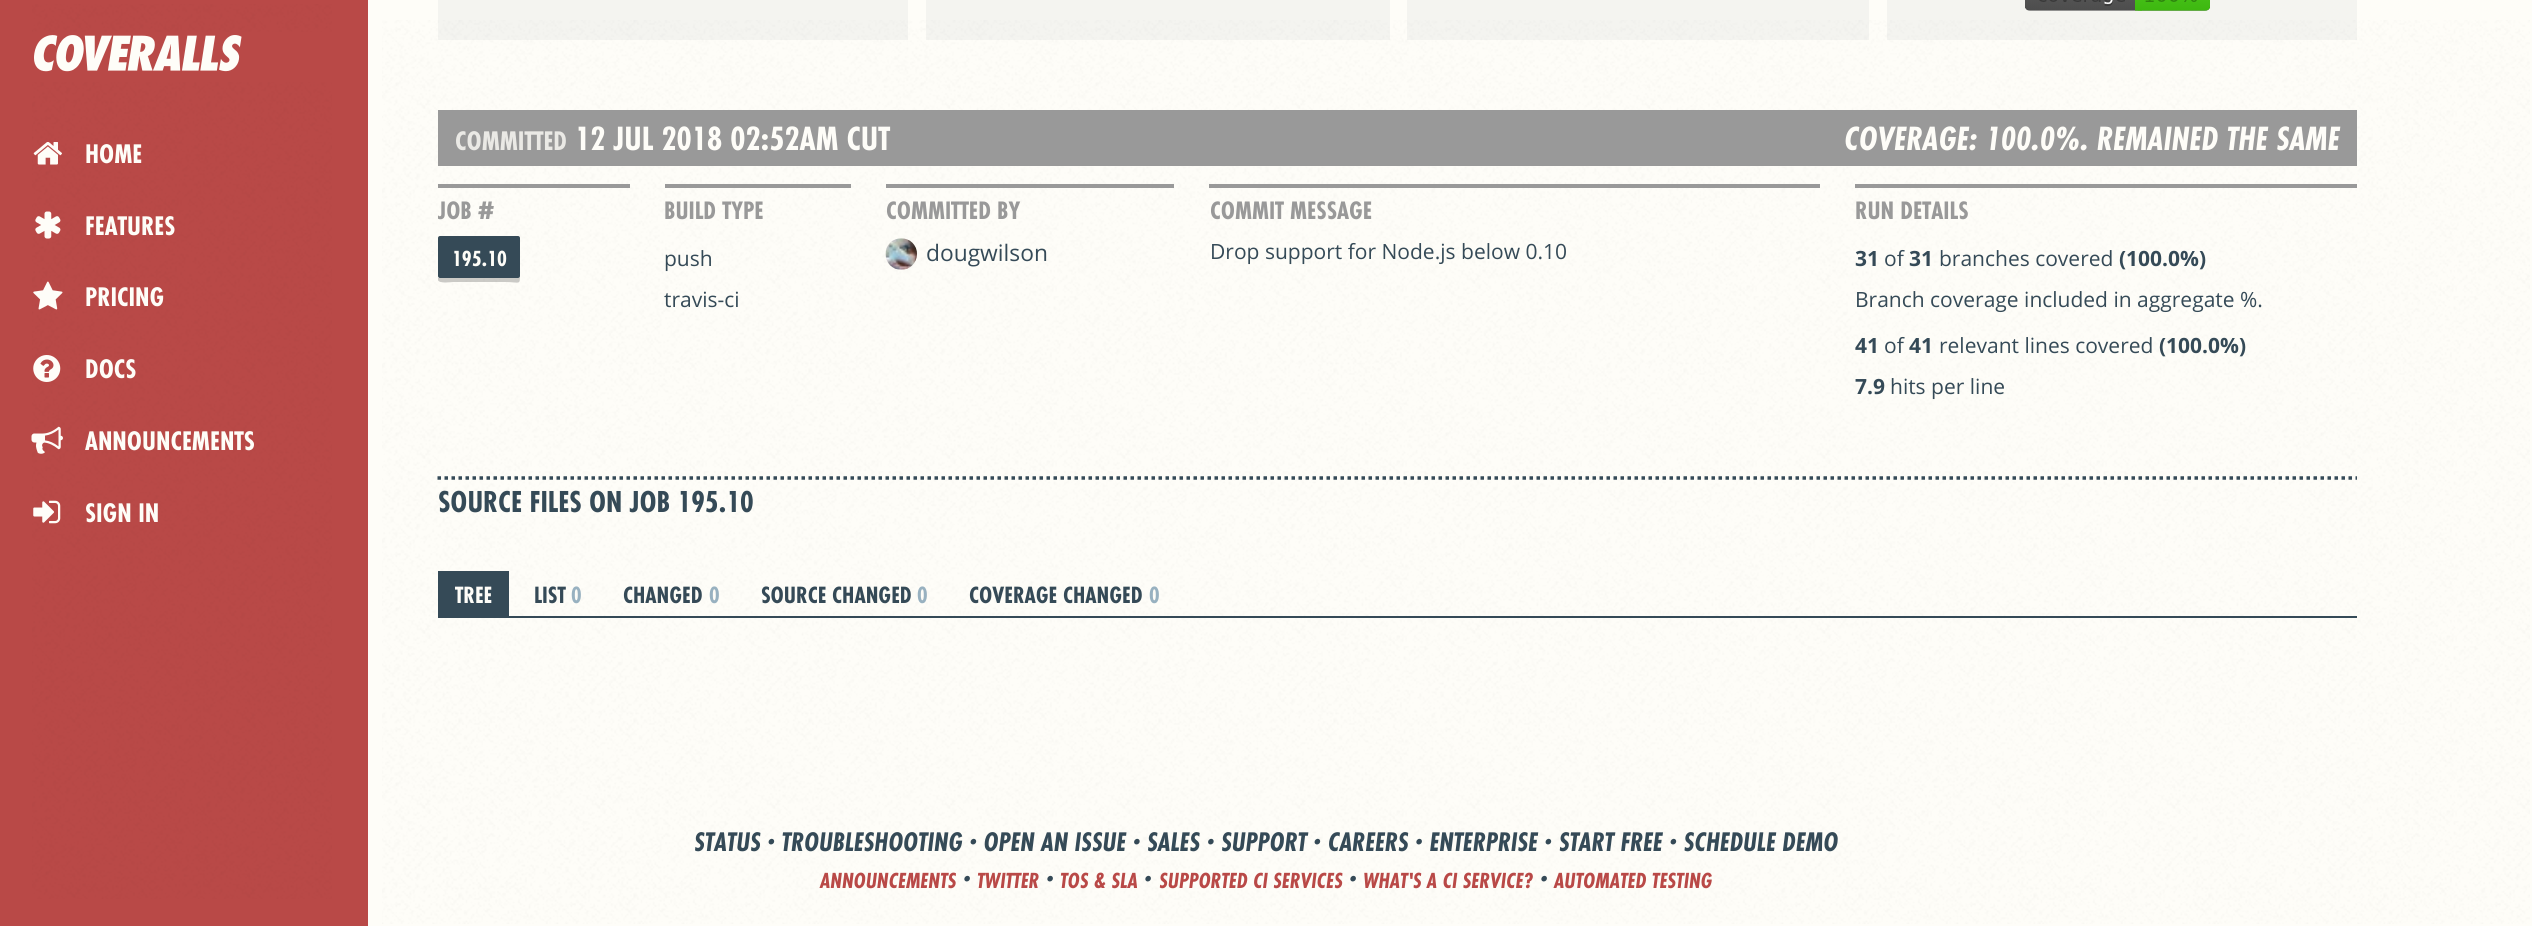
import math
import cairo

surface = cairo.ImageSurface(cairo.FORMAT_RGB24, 2532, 926)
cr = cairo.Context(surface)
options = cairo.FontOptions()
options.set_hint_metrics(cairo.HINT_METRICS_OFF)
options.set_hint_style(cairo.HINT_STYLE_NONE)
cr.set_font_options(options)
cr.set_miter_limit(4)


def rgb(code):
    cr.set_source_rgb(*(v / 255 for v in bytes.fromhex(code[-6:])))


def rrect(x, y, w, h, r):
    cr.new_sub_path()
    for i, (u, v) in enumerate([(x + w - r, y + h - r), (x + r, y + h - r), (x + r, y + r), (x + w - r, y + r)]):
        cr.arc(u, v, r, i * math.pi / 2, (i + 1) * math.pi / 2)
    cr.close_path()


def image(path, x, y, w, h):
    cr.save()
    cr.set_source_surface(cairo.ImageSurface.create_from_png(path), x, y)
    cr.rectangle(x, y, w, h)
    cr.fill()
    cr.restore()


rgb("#fefdf8")
cr.paint()
image("img/1.png", 382, 20, 2148, 904)
rgb("#b94947")
cr.rectangle(0, 0, 368, 926)
cr.fill()
image("img/2.png", 32, 4, 300, 895)
cr.rectangle(32, 32, 300, 50)
cr.fill()
image("img/3.png", 34, 35, 208, 37)
image("img/4.png", 33, 142, 29, 23)
image("img/5.png", 35, 211, 26, 28)
image("img/6.png", 33, 281, 30, 29)
image("img/7.png", 33, 355, 28, 27)
image("img/8.png", 31, 426, 32, 28)
image("img/9.png", 33, 500, 28, 24)
cr.set_source_rgba(0.208, 0.29, 0.341, 0.05)
cr.rectangle(438, 0, 470, 40)
cr.fill()
cr.rectangle(926, 0, 464, 40)
cr.fill()
cr.rectangle(1407, 0, 462, 40)
cr.fill()
cr.rectangle(1887, 0, 470, 40)
cr.fill()
image("img/10.png", 2025, 0, 185, 11)
rgb("#999999")
cr.rectangle(438, 110, 1919, 56)
cr.fill()
cr.rectangle(438, 184, 192, 4)
cr.fill()
cr.set_source_rgba(0, 0, 0, 0.2)
cr.new_path()
cr.move_to(438, 278)
cr.line_to(438, 280)
cr.curve_to(439, 284, 452, 282, 453, 282)
cr.line_to(505, 282)
cr.curve_to(520, 282, 520, 286, 520, 274)
cr.line_to(520, 241)
cr.line_to(520, 276)
cr.curve_to(520, 277, 519, 278, 518, 278)
cr.line_to(439, 278)
cr.close_path()
cr.fill()
rgb("#354a57")
rrect(438, 236, 82, 42, 2)
cr.fill()
rgb("#999999")
cr.rectangle(665, 184, 186, 4)
cr.fill()
cr.rectangle(886, 184, 288, 4)
cr.fill()
image("img/11.png", 885, 238, 32, 32)
cr.rectangle(1209, 184, 611, 4)
cr.fill()
cr.rectangle(1855, 184, 502, 4)
cr.fill()
cr.new_path()
cr.move_to(437.5, 478)
cr.line_to(2357, 478)
rgb("#354a57")
cr.set_line_width(3.5)
cr.set_dash([3.5, 3.5])
cr.stroke()
cr.rectangle(438, 616, 1919, 2)
cr.fill()
cr.rectangle(438, 571, 71, 45)
cr.fill()
cr.select_font_face("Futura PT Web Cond", cairo.FONT_SLANT_NORMAL, cairo.FONT_WEIGHT_BOLD)
cr.set_font_size(28)
rgb("#fefdf8")
for x, y, s in [
    (85, 163, "HOME"),
    (85, 235, "FEATURES"),
    (85, 306, "PRICING"),
    (85, 378, "DOCS"),
    (85, 450, "ANNOUNCEMENTS"),
    (85, 522, "SIGN IN"),
]:
    cr.move_to(x, y)
    cr.show_text(s)
rgb("#eae9e5")
cr.move_to(455, 150)
cr.show_text("COMMITTED")
cr.set_font_size(35)
rgb("#fefdf8")
cr.move_to(575, 150)
cr.show_text("12 JUL 2018 02:52AM CUT")
cr.select_font_face("Futura PT Web Cond", cairo.FONT_SLANT_ITALIC, cairo.FONT_WEIGHT_BOLD)
cr.move_to(1844, 150)
cr.show_text("COVERAGE: 100.0%. REMAINED THE SAME")
cr.select_font_face("Futura PT Web Cond", cairo.FONT_SLANT_NORMAL, cairo.FONT_WEIGHT_BOLD)
cr.set_font_size(26.25)
rgb("#999999")
cr.move_to(438, 219)
cr.show_text("JOB #")
cr.set_font_size(22.75)
rgb("#fefdf8")
cr.move_to(452, 266)
cr.show_text("195.10")
cr.set_font_size(26.25)
rgb("#999999")
cr.move_to(664, 219)
cr.show_text("BUILD TYPE")
cr.select_font_face("Open Sans")
cr.set_font_size(21)
rgb("#354a57")
cr.move_to(664, 266)
cr.show_text("push")
cr.move_to(664, 307)
cr.show_text("travis-ci")
cr.select_font_face("Futura PT Web Cond", cairo.FONT_SLANT_NORMAL, cairo.FONT_WEIGHT_BOLD)
cr.set_font_size(26.25)
rgb("#999999")
cr.move_to(886, 219)
cr.show_text("COMMITTED BY")
cr.select_font_face("Open Sans")
cr.set_font_size(22.75)
rgb("#354a57")
cr.move_to(926, 261)
cr.show_text("dougwilson")
cr.select_font_face("Futura PT Web Cond", cairo.FONT_SLANT_NORMAL, cairo.FONT_WEIGHT_BOLD)
cr.set_font_size(26.25)
rgb("#999999")
cr.move_to(1210, 219)
cr.show_text("COMMIT MESSAGE")
cr.select_font_face("Open Sans")
cr.set_font_size(21)
rgb("#354a57")
cr.move_to(1210, 259)
cr.show_text("Drop support for Node.js below 0.10")
cr.select_font_face("Futura PT Web Cond", cairo.FONT_SLANT_NORMAL, cairo.FONT_WEIGHT_BOLD)
cr.set_font_size(26.25)
rgb("#999999")
cr.move_to(1855, 219)
cr.show_text("RUN DETAILS")
cr.select_font_face("Open Sans", cairo.FONT_SLANT_NORMAL, cairo.FONT_WEIGHT_BOLD)
cr.set_font_size(21)
rgb("#354a57")
cr.move_to(1855, 266)
cr.show_text("31")
cr.select_font_face("Open Sans")
cr.move_to(1884, 266)
cr.show_text("of")
cr.select_font_face("Open Sans", cairo.FONT_SLANT_NORMAL, cairo.FONT_WEIGHT_BOLD)
cr.move_to(1909, 266)
cr.show_text("31")
cr.select_font_face("Open Sans")
cr.move_to(1939, 266)
cr.show_text("branches covered")
cr.select_font_face("Open Sans", cairo.FONT_SLANT_NORMAL, cairo.FONT_WEIGHT_BOLD)
cr.move_to(2119, 266)
cr.show_text("(100.0%)")
cr.select_font_face("Open Sans")
cr.move_to(1855, 307)
cr.show_text("Branch coverage included in aggregate %.")
cr.select_font_face("Open Sans", cairo.FONT_SLANT_NORMAL, cairo.FONT_WEIGHT_BOLD)
cr.move_to(1855, 353)
cr.show_text("41")
cr.select_font_face("Open Sans")
cr.move_to(1884, 353)
cr.show_text("of")
cr.select_font_face("Open Sans", cairo.FONT_SLANT_NORMAL, cairo.FONT_WEIGHT_BOLD)
cr.move_to(1909, 353)
cr.show_text("41")
cr.select_font_face("Open Sans")
cr.move_to(1939, 353)
cr.show_text("relevant lines covered")
cr.select_font_face("Open Sans", cairo.FONT_SLANT_NORMAL, cairo.FONT_WEIGHT_BOLD)
cr.move_to(2159, 353)
cr.show_text("(100.0%)")
cr.move_to(1855, 394)
cr.show_text("7.9")
cr.select_font_face("Open Sans")
cr.move_to(1890, 394)
cr.show_text("hits per line")
cr.select_font_face("Futura PT Web Cond", cairo.FONT_SLANT_NORMAL, cairo.FONT_WEIGHT_BOLD)
cr.set_font_size(31.5)
cr.move_to(438, 512)
cr.show_text("SOURCE FILES ON JOB 195.10")
cr.set_font_size(24.5)
rgb("#fefdf8")
cr.move_to(455, 603)
cr.show_text("TREE")
rgb("#354a57")
cr.move_to(534, 603)
cr.show_text("LIST")
rgb("#98b1c0")
cr.move_to(571, 603)
cr.show_text("0")
rgb("#354a57")
cr.move_to(623, 603)
cr.show_text("CHANGED")
rgb("#98b1c0")
cr.move_to(709, 603)
cr.show_text("0")
rgb("#354a57")
cr.move_to(761, 603)
cr.show_text("SOURCE CHANGED")
rgb("#98b1c0")
cr.move_to(917, 603)
cr.show_text("0")
rgb("#354a57")
cr.move_to(969, 603)
cr.show_text("COVERAGE CHANGED")
rgb("#98b1c0")
cr.move_to(1149, 603)
cr.show_text("0")
cr.select_font_face("Futura PT Web Cond", cairo.FONT_SLANT_ITALIC, cairo.FONT_WEIGHT_BOLD)
cr.set_font_size(28)
rgb("#354a57")
cr.move_to(694, 851)
cr.show_text("STATUS · TROUBLESHOOTING · OPEN AN ISSUE · SALES · SUPPORT · CAREERS · ENTERPRISE · START FREE · SCHEDULE DEMO")
cr.set_font_size(22.75)
rgb("#b94947")
cr.move_to(820, 888)
cr.show_text("ANNOUNCEMENTS")
cr.set_font_size(28)
rgb("#354a57")
cr.move_to(963, 888)
cr.show_text("·")
cr.set_font_size(22.75)
rgb("#b94947")
cr.move_to(977, 888)
cr.show_text("TWITTER")
cr.set_font_size(28)
rgb("#354a57")
cr.move_to(1046, 888)
cr.show_text("·")
cr.set_font_size(22.75)
rgb("#b94947")
cr.move_to(1060, 888)
cr.show_text("TOS & SLA")
cr.set_font_size(28)
rgb("#354a57")
cr.move_to(1144, 888)
cr.show_text("·")
cr.set_font_size(22.75)
rgb("#b94947")
cr.move_to(1159, 888)
cr.show_text("SUPPORTED CI SERVICES")
cr.set_font_size(28)
rgb("#354a57")
cr.move_to(1349, 888)
cr.show_text("·")
cr.set_font_size(22.75)
rgb("#b94947")
cr.move_to(1363, 888)
cr.show_text("WHAT'S A CI SERVICE?")
cr.set_font_size(28)
rgb("#354a57")
cr.move_to(1540, 888)
cr.show_text("·")
cr.set_font_size(22.75)
rgb("#b94947")
cr.move_to(1554, 888)
cr.show_text("AUTOMATED TESTING")
surface.write_to_png("page.png")
